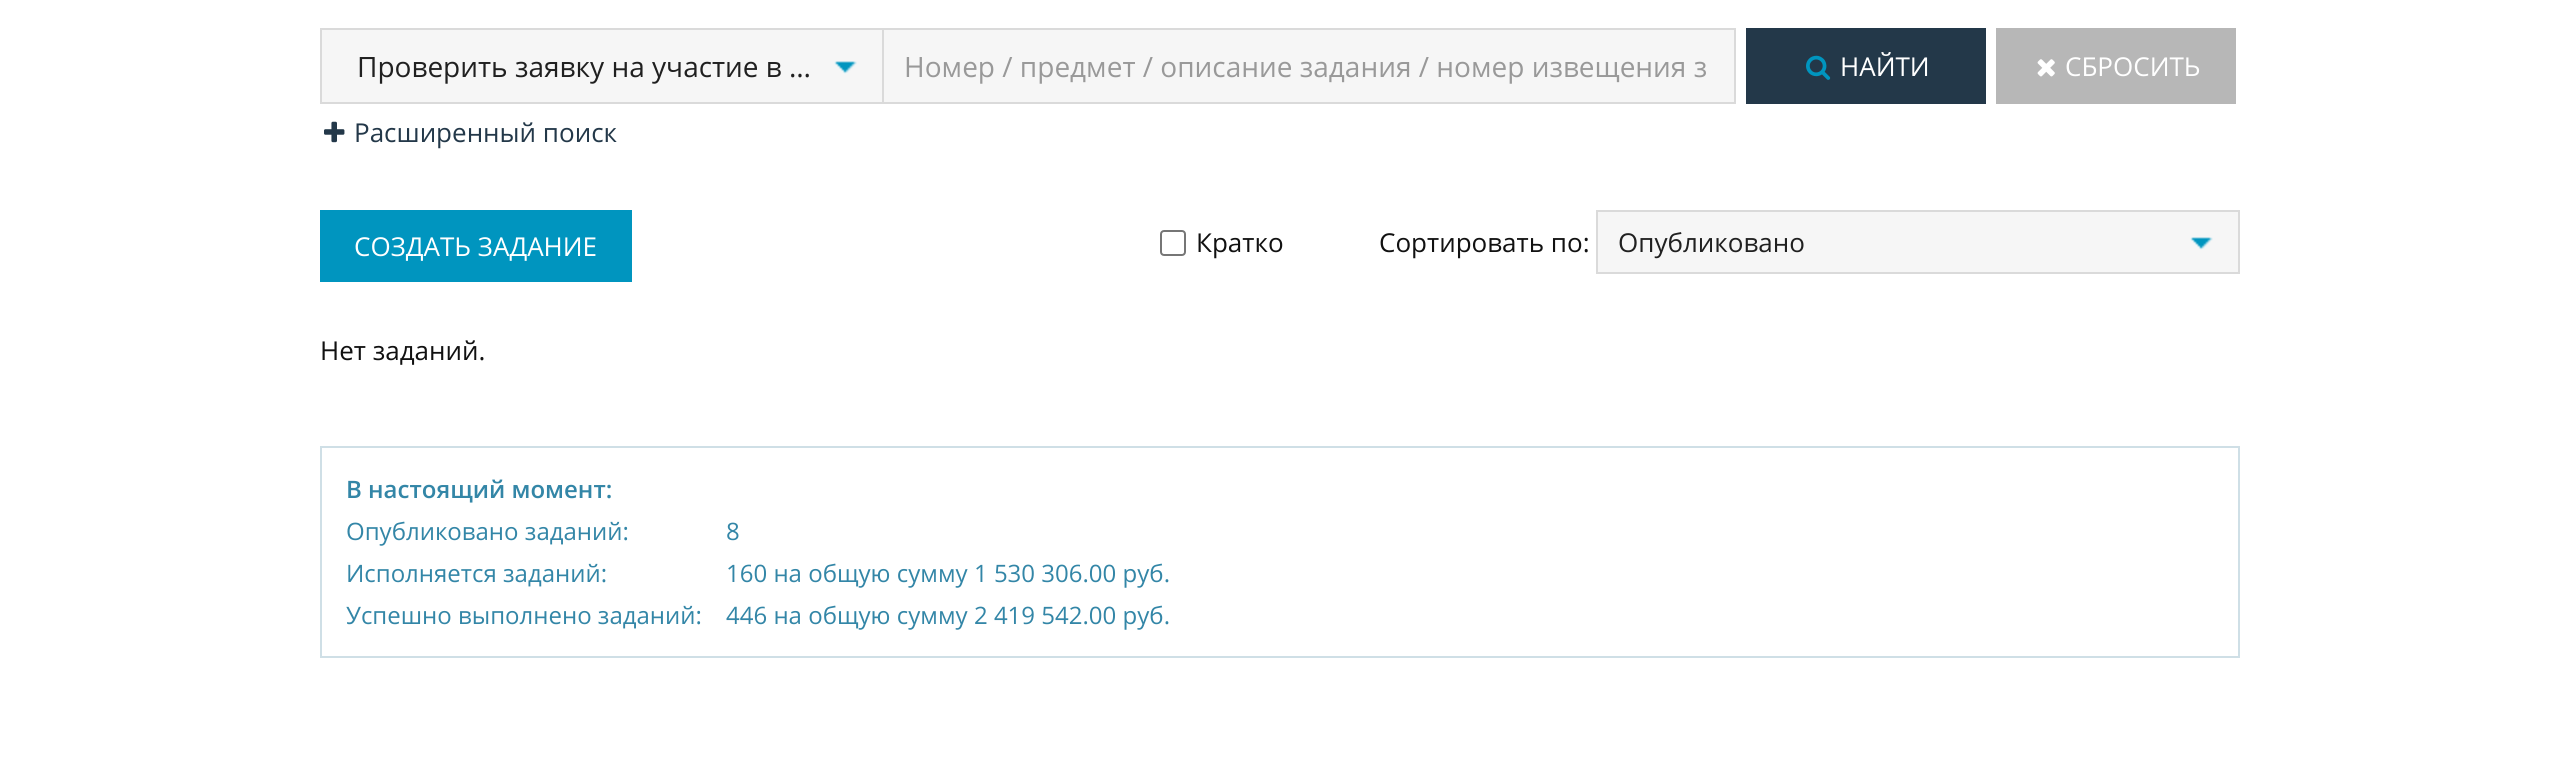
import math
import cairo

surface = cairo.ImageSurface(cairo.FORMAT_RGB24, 2559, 772)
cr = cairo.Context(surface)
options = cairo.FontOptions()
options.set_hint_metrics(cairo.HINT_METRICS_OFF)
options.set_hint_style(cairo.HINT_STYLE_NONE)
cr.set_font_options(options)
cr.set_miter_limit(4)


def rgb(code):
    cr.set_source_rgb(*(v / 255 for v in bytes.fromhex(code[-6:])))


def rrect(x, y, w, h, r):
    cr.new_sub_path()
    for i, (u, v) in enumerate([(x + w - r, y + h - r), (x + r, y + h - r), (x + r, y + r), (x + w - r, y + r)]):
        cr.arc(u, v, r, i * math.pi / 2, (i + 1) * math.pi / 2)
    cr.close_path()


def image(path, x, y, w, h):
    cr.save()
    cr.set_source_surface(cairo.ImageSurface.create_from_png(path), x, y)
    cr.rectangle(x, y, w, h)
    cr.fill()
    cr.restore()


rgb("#ffffff")
cr.paint()
rgb("#dadada")
cr.rectangle(320, 28, 1416, 76)
cr.fill()
rgb("#f6f6f6")
cr.rectangle(322, 30, 560, 72)
cr.fill()
image("img/1.png", 834, 61, 23, 13)
cr.rectangle(884, 30, 850, 72)
cr.fill()
rgb("#233849")
cr.rectangle(1746, 28, 240, 76)
cr.fill()
image("img/2.png", 1806, 55, 25, 25)
rgb("#b7b7b7")
cr.rectangle(1996, 28, 240, 76)
cr.fill()
image("img/3.png", 2037, 59, 18, 18)
image("img/4.png", 324, 121, 21, 22)
rgb("#0095bf")
cr.rectangle(320, 210, 312, 72)
cr.fill()
rrect(1161, 231, 24, 24, 3)
rgb("#767676")
cr.stroke()
cr.rectangle(1597, 211, 642, 62)
rgb("#dadada")
cr.stroke()
rgb("#f6f6f6")
cr.rectangle(1598, 212, 640, 60)
cr.fill()
image("img/1.png", 2190, 237, 23, 13)
cr.rectangle(321, 447, 1918, 210)
rgb("#cfdfe6")
cr.stroke()
cr.select_font_face("Open Sans")
cr.set_font_size(28)
rgb("#202020")
cr.move_to(357, 77)
cr.show_text("Проверить заявку на участие в …")
rgb("#999999")
cr.move_to(904, 77)
cr.show_text("Номер / предмет / описание задания / номер извещения з")
cr.set_font_size(26)
rgb("#ffffff")
cr.move_to(1840, 76)
cr.show_text("НАЙТИ")
cr.move_to(2065, 76)
cr.show_text("СБРОСИТЬ")
rgb("#233849")
cr.move_to(354, 142)
cr.show_text("Расширенный поиск")
rgb("#ffffff")
cr.move_to(354, 256)
cr.show_text("СОЗДАТЬ ЗАДАНИЕ")
rgb("#111111")
cr.move_to(1196, 252)
cr.show_text("Кратко")
cr.move_to(1379, 252)
cr.show_text("Сортировать по:")
rgb("#202020")
cr.move_to(1618, 252)
cr.show_text("Опубликовано")
rgb("#111111")
cr.move_to(320, 360)
cr.show_text("Нет заданий.")
cr.select_font_face("Open Sans SemiBold")
cr.set_font_size(24)
rgb("#3386a7")
cr.move_to(346, 498)
cr.show_text("В настоящий момент:")
cr.select_font_face("Open Sans")
for x, y, s in [
    (346, 540, "Опубликовано заданий:"),
    (726, 540, "8"),
    (346, 582, "Исполняется заданий:"),
    (726, 582, "160 на общую сумму 1 530 306.00 руб."),
    (346, 624, "Успешно выполнено заданий:"),
    (726, 624, "446 на общую сумму 2 419 542.00 руб."),
]:
    cr.move_to(x, y)
    cr.show_text(s)
surface.write_to_png("page.png")
